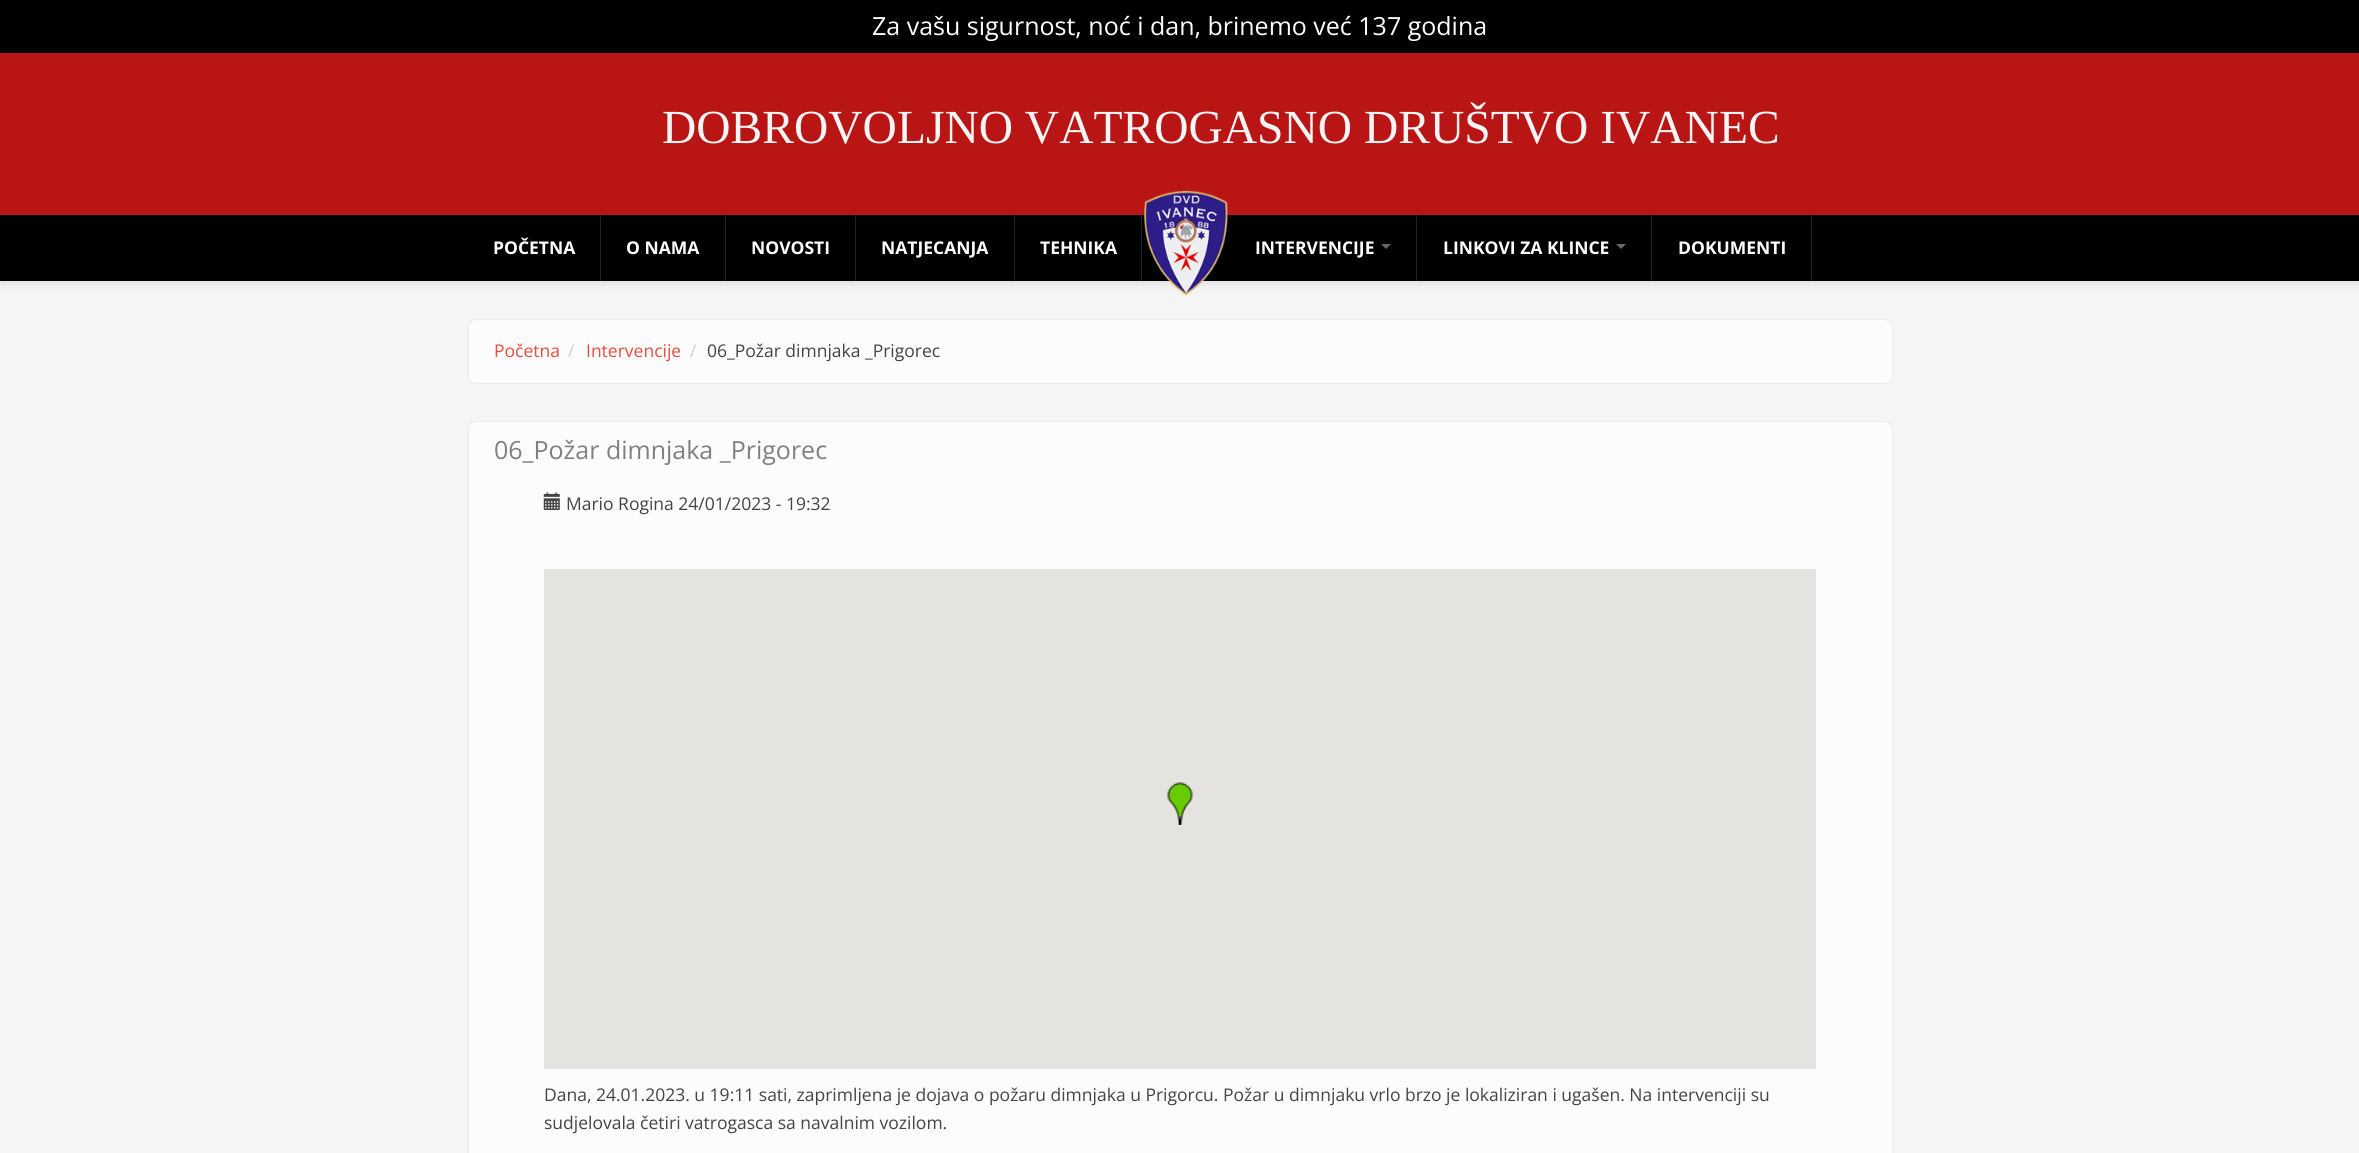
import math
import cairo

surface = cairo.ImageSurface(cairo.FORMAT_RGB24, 2359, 1153)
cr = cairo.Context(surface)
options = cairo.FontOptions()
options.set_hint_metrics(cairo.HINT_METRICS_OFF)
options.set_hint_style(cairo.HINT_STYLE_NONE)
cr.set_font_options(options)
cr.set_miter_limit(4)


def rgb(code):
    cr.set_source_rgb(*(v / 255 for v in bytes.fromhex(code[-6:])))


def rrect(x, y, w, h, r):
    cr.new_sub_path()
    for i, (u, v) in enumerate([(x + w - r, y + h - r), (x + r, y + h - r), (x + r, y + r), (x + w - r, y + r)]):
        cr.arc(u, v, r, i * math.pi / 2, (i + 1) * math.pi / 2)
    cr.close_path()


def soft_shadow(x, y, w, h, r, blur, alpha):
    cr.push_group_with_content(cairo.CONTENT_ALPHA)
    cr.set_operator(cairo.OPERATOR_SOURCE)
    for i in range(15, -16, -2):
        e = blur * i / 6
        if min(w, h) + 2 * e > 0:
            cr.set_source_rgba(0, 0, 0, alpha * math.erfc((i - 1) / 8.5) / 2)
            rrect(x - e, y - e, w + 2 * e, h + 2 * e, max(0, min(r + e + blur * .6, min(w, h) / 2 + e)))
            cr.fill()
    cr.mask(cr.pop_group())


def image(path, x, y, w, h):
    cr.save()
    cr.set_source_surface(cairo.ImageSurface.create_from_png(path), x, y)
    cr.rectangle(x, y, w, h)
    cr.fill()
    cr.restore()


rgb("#000000")
cr.paint()
rgb("#ba1515")
cr.rectangle(0, 53, 2359, 162)
cr.fill()
rgb("#f3f3f3")
cr.rectangle(0, 281, 2359, 13)
cr.fill()
rgb("#000000")
soft_shadow(0, 218, 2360, 66, 0, 2.5, 0.07)
rgb("#f5f5f5")
cr.rectangle(0, 294, 2359, 859)
cr.fill()
image("img/1.png", 1144, 190, 84, 106)
for x, y, w, h, color in [
    (600, 215, 1, 66, "#222222"),
    (725, 215, 1, 66, "#222222"),
    (855, 215, 1, 66, "#222222"),
    (1014, 215, 1, 66, "#222222"),
    (1141, 215, 1, 66, "#222222"),
    (1416, 215, 1, 66, "#222222"),
]:
    rgb(color)
    cr.rectangle(x, y, w, h)
    cr.fill()
rgb("#666666")
cr.new_path()
cr.move_to(1381, 244)
cr.line_to(1391, 244)
cr.line_to(1386, 249)
cr.close_path()
cr.fill()
rgb("#222222")
cr.rectangle(1651, 215, 1, 66)
cr.fill()
rgb("#666666")
cr.new_path()
cr.move_to(1616, 244)
cr.line_to(1626, 244)
cr.line_to(1621, 249)
cr.close_path()
cr.fill()
rgb("#222222")
cr.rectangle(1811, 215, 1, 66)
cr.fill()
rgb("#fcfcfc")
rrect(468.5, 319.5, 1424, 64, 7.5)
cr.fill_preserve()
rgb("#eaeaea")
cr.set_line_width(1)
cr.stroke()
rgb("#fcfcfc")
rrect(468.5, 421.5, 1424, 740, 7.5)
cr.fill_preserve()
rgb("#eaeaea")
cr.stroke()
image("img/2.png", 543, 492, 17, 18)
rgb("#e5e3df")
cr.rectangle(544, 569, 1272, 500)
cr.fill()
image("img/3.png", 1167, 782, 26, 43)
cr.select_font_face("Open Sans")
cr.set_font_size(25)
rgb("#ffffff")
cr.move_to(872, 35)
cr.show_text("Za vašu sigurnost, noć i dan, brinemo već 137 godina")
cr.select_font_face("Liberation Serif")
cr.set_font_size(47.5)
rgb("#f5f5f5")
cr.move_to(662, 143)
cr.show_text("DOBROVOLJNO VATROGASNO DRUŠTVO IVANEC")
cr.select_font_face("Open Sans", cairo.FONT_SLANT_NORMAL, cairo.FONT_WEIGHT_BOLD)
cr.set_font_size(17.5)
rgb("#ffffff")
for x, y, s in [
    (493, 254, "POČETNA"),
    (626, 254, "O NAMA"),
    (751, 254, "NOVOSTI"),
    (881, 254, "NATJECANJA"),
    (1040, 254, "TEHNIKA"),
    (1255, 254, "INTERVENCIJE"),
    (1443, 254, "LINKOVI ZA KLINCE"),
    (1678, 254, "DOKUMENTI"),
]:
    cr.move_to(x, y)
    cr.show_text(s)
cr.select_font_face("Open Sans")
rgb("#e74c3c")
cr.move_to(494, 357)
cr.show_text("Početna")
rgb("#cccccc")
cr.move_to(568, 357)
cr.show_text("/")
rgb("#e74c3c")
cr.move_to(586, 357)
cr.show_text("Intervencije")
rgb("#cccccc")
cr.move_to(690, 357)
cr.show_text("/")
rgb("#444444")
cr.move_to(707, 357)
cr.show_text("06_Požar dimnjaka _Prigorec")
cr.set_font_size(25)
rgb("#808080")
cr.move_to(494, 459)
cr.show_text("06_Požar dimnjaka _Prigorec")
cr.set_font_size(17.5)
rgb("#444444")
for x, y, s in [
    (566, 510, "Mario Rogina 24/01/2023 - 19:32"),
    (544, 1101, "Dana, 24.01.2023. u 19:11 sati, zaprimljena je dojava o požaru dimnjaka u Prigorcu. Požar u dimnjaku vrlo brzo je lokaliziran i ugašen. Na intervenciji su"),
    (544, 1129, "sudjelovala četiri vatrogasca sa navalnim vozilom."),
]:
    cr.move_to(x, y)
    cr.show_text(s)
surface.write_to_png("page.png")
